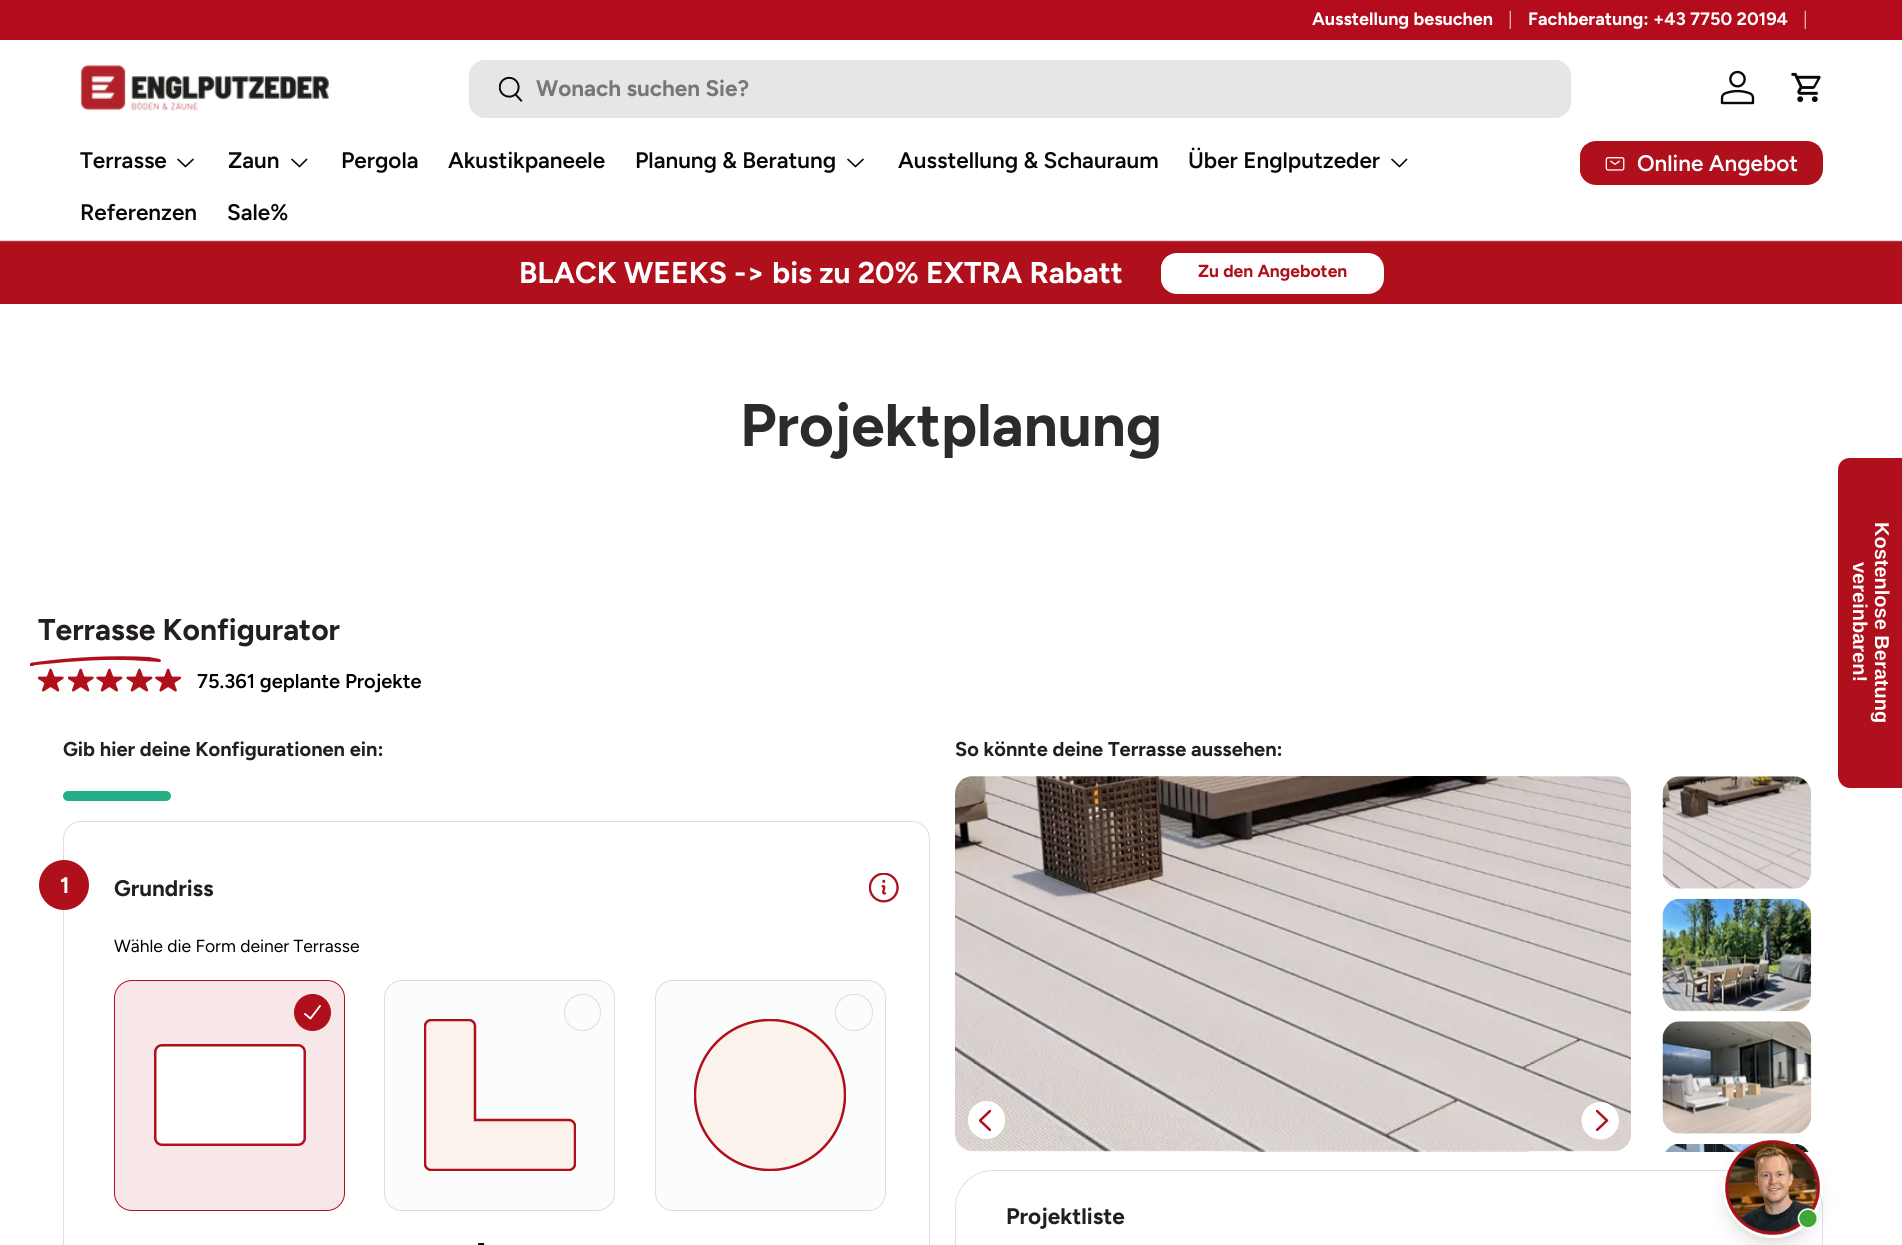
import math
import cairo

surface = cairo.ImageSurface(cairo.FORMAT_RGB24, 1902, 1245)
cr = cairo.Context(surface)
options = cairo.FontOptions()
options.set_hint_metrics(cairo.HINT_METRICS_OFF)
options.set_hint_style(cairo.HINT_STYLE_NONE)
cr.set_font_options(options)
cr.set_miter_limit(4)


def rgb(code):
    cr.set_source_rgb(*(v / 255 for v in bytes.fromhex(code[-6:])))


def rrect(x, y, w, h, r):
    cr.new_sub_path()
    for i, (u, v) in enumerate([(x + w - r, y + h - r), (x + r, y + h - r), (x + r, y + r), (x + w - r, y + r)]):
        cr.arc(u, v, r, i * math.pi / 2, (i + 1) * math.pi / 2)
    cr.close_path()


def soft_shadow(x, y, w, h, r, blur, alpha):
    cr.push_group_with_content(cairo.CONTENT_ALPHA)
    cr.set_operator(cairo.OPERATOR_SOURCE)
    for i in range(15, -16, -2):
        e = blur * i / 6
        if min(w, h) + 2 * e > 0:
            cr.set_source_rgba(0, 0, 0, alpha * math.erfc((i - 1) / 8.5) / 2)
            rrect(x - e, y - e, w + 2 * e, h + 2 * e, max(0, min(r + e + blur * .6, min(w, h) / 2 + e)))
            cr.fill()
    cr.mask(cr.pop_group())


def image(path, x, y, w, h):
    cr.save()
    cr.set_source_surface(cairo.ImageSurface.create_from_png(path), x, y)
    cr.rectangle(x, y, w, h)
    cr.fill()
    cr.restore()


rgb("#ffffff")
cr.paint()
rgb("#b40c1c")
cr.rectangle(0, 0, 1902, 40)
cr.fill()
rgb("#dadada")
cr.rectangle(0, 240, 1902, 1)
cr.fill()
image("img/1.png", 80, 64, 249, 47)
rgb("#e6e6e6")
rrect(469, 60, 1102, 58, 16)
cr.fill()
image("img/2.png", 499, 76, 24, 26)
image("img/3.png", 1720, 70, 35, 35)
image("img/4.png", 1791, 72, 30, 31)
cr.new_path()
cr.move_to(193.5, 159)
cr.line_to(185.5, 166.5)
cr.line_to(177.5, 159)
rgb("#070707")
cr.set_line_width(1.6)
cr.stroke()
cr.new_path()
cr.move_to(307, 159)
cr.line_to(299.5, 166.5)
cr.line_to(291.5, 159)
cr.stroke()
cr.new_path()
cr.move_to(863.5, 159)
cr.line_to(855.5, 166.5)
cr.line_to(847.5, 159)
cr.stroke()
cr.new_path()
cr.move_to(1407, 159)
cr.line_to(1399.5, 166.5)
cr.line_to(1391.5, 159)
cr.stroke()
cr.save()
rrect(1580, 141, 243, 44, 16)
cr.clip()
gradient = cairo.LinearGradient(1130, 79, 1802, 247)
gradient.add_color_stop_rgba(0.6, 0.784, 0.216, 0.259, 1)
gradient.add_color_stop_rgba(0.6, 0.69, 0.063, 0.11, 1)
gradient.add_color_stop_rgba(1, 0.69, 0.063, 0.11, 1)
cr.set_source(gradient)
cr.rectangle(1580, 145, 239, 36)
cr.fill()
cr.restore()
rrect(1582, 143, 239, 40, 14)
rgb("#b0101c")
cr.set_line_width(4)
cr.stroke()
image("img/5.png", 1605, 157, 20, 14)
cr.rectangle(0, 242, 1902, 62)
cr.fill()
rgb("#bc343e")
cr.rectangle(0, 241, 1902, 1)
cr.fill()
cr.save()
rrect(1161, 253, 223, 41, 16)
cr.clip()
gradient = cairo.LinearGradient(750, 196, 1365, 350)
gradient.add_color_stop_rgba(0.6, 0.969, 0.902, 0.91, 1)
gradient.add_color_stop_rgba(0.6, 1, 1, 1, 1)
gradient.add_color_stop_rgba(1, 1, 1, 1, 1)
cr.set_source(gradient)
cr.rectangle(1161, 256, 219, 34)
cr.fill()
cr.restore()
rrect(1163, 255, 219, 37, 14)
rgb("#ffffff")
cr.stroke()
cr.save()
cr.rectangle(30, 656, 131, 10)
cr.clip()
rgb("#b0101c")
cr.set_fill_rule(cairo.FILL_RULE_EVEN_ODD)
cr.new_path()
cr.move_to(150, 657)
cr.curve_to(112, 655, 74, 657, 36, 662)
cr.curve_to(34, 663, 29, 661, 30, 666)
cr.curve_to(32, 667, 34, 665, 36, 665)
cr.line_to(67, 662)
cr.curve_to(93, 660, 118, 659, 144, 661)
cr.line_to(160, 662)
cr.curve_to(165, 658, 150, 658, 150, 657)
cr.fill()
cr.restore()
image("img/6.png", 38, 668, 26, 24)
image("img/6.png", 68, 668, 26, 24)
image("img/7.png", 96, 668, 27, 24)
image("img/7.png", 126, 668, 27, 24)
image("img/8.png", 155, 668, 26, 24)
rgb("#24af86")
rrect(63, 791, 108, 10, 5)
cr.fill()
rrect(63.5, 821.5, 866, 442, 17.5)
rgb("#dcddde")
cr.set_line_width(1)
cr.stroke()
rgb("#b0101c")
cr.arc(64, 885, 25, 0, 2 * math.pi)
cr.fill()
image("img/9.png", 869, 873, 30, 30)
rgb("#f7e7e8")
rrect(114.5, 980.5, 230, 230, 17.5)
cr.fill_preserve()
rgb("#b0101c")
cr.stroke()
cr.arc(312.5, 1012.5, 18, 0, 2 * math.pi)
cr.fill_preserve()
cr.stroke()
cr.new_path()
cr.move_to(305, 1014)
cr.line_to(310.5, 1018.5)
cr.line_to(320, 1006)
rgb("#ffffff")
cr.set_line_width(1.9)
cr.set_line_cap(cairo.LINE_CAP_ROUND)
cr.set_line_join(cairo.LINE_JOIN_ROUND)
cr.stroke()
rrect(155.25, 1045.25, 149.5, 99.5, 6.75)
cr.fill_preserve()
rgb("#b0101c")
cr.set_line_width(2.5)
cr.set_line_cap(cairo.LINE_CAP_BUTT)
cr.set_line_join(cairo.LINE_JOIN_MITER)
cr.stroke()
rgb("#fbfcfc")
rrect(655.5, 980.5, 230, 230, 17.5)
cr.fill_preserve()
rgb("#dcddde")
cr.set_line_width(1)
cr.stroke()
rgb("#fbf2eb")
cr.arc(770, 1095, 75, 0, 2 * math.pi)
cr.fill()
cr.save()
cr.rectangle(694, 1019, 152, 152)
cr.clip()
cr.arc(770, 1095, 75, 0, 2 * math.pi)
rgb("#b0101c")
cr.set_line_width(2.5)
cr.stroke()
cr.restore()
rrect(835.5, 994.5, 37, 36, 18)
rgb("#dcddde")
cr.stroke()
rgb("#fbfcfc")
rrect(384.5, 980.5, 230, 230, 17.5)
cr.fill_preserve()
rgb("#dcddde")
cr.stroke()
image("img/10.png", 424, 1019, 152, 152)
cr.arc(582.5, 1012.5, 18, 0, 2 * math.pi)
cr.stroke()
image("img/11.png", 955, 776, 676, 376)
rgb("#ffffff")
rrect(968, 1101, 37, 38, 18.5)
cr.fill()
cr.save()
cr.rectangle(979, 1110, 12, 21)
cr.clip()
cr.new_path()
cr.move_to(990, 1130)
cr.line_to(980, 1120.5)
cr.line_to(990, 1111)
rgb("#b0101c")
cr.set_line_width(2.5)
cr.set_line_cap(cairo.LINE_CAP_ROUND)
cr.set_line_join(cairo.LINE_JOIN_ROUND)
cr.stroke()
cr.restore()
cr.new_path()
cr.move_to(1600.5, 1139.5)
cr.curve_to(1590, 1139.5, 1581.5, 1131, 1581.5, 1120.5)
cr.curve_to(1581.5, 1110.5, 1590, 1102, 1600.5, 1102)
cr.curve_to(1610.5, 1102, 1619, 1110.5, 1619, 1120.5)
cr.curve_to(1619, 1131, 1610.5, 1139.5, 1600.5, 1139.5)
cr.close_path()
cr.fill()
cr.save()
cr.rectangle(1596, 1110, 13, 21)
cr.clip()
cr.new_path()
cr.move_to(1597, 1111)
cr.line_to(1607, 1120.5)
cr.line_to(1597, 1130)
rgb("#b0101c")
cr.set_line_width(2.5)
cr.set_line_cap(cairo.LINE_CAP_ROUND)
cr.set_line_join(cairo.LINE_JOIN_ROUND)
cr.stroke()
cr.restore()
image("img/12.png", 1662, 776, 150, 113)
image("img/13.png", 1662, 898, 150, 114)
image("img/14.png", 1662, 1021, 150, 113)
image("img/15.png", 1665, 1144, 144, 8)
rrect(955.5, 1170.5, 867, 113, 37.5)
rgb("#dedfe0")
cr.stroke()
cr.save()
cr.set_fill_rule(cairo.FILL_RULE_EVEN_ODD)
cr.new_path()
cr.move_to(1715, 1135)
cr.line_to(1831, 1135)
cr.line_to(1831, 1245)
cr.line_to(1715, 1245)
cr.close_path()
cr.move_to(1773, 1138)
cr.curve_to(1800.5, 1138, 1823, 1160.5, 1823, 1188)
cr.curve_to(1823, 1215.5, 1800.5, 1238, 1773, 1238)
cr.curve_to(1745.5, 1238, 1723, 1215.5, 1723, 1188)
cr.curve_to(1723, 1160.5, 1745.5, 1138, 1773, 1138)
cr.close_path()
cr.clip()
rgb("#000000")
soft_shadow(1728, 1148, 90, 90, 45, 4, 0.1)
cr.restore()
cr.save()
cr.set_fill_rule(cairo.FILL_RULE_EVEN_ODD)
cr.new_path()
cr.move_to(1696, 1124)
cr.line_to(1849, 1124)
cr.line_to(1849, 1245)
cr.line_to(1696, 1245)
cr.close_path()
cr.move_to(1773, 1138)
cr.curve_to(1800.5, 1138, 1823, 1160.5, 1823, 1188)
cr.curve_to(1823, 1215.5, 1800.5, 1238, 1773, 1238)
cr.curve_to(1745.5, 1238, 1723, 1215.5, 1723, 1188)
cr.curve_to(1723, 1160.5, 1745.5, 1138, 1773, 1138)
cr.close_path()
cr.clip()
rgb("#000000")
soft_shadow(1726, 1154, 93, 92, 46, 9.5, 0.1)
cr.restore()
image("img/16.png", 1724, 1139, 97, 97)
rgb("#b0101c")
cr.new_path()
cr.move_to(1902, 458)
cr.line_to(1902, 788)
cr.line_to(1850, 788)
cr.curve_to(1843, 788, 1838, 782, 1838, 775)
cr.line_to(1838, 470)
cr.curve_to(1838, 463, 1843, 458, 1850, 458)
cr.close_path()
cr.fill()
cr.select_font_face("Figtree", cairo.FONT_SLANT_NORMAL, cairo.FONT_WEIGHT_BOLD)
cr.set_font_size(18)
rgb("#ffffff")
cr.move_to(1312, 25)
cr.show_text("Ausstellung besuchen")
cr.select_font_face("Figtree")
rgb("#e9b6bb")
cr.move_to(1508, 25)
cr.show_text("|")
cr.select_font_face("Figtree", cairo.FONT_SLANT_NORMAL, cairo.FONT_WEIGHT_BOLD)
rgb("#ffffff")
cr.move_to(1528, 25)
cr.show_text("Fachberatung: +43 7750 20194")
cr.select_font_face("Figtree")
rgb("#e9b6bb")
cr.move_to(1803, 25)
cr.show_text("|")
cr.select_font_face("Figtree", cairo.FONT_SLANT_NORMAL, cairo.FONT_WEIGHT_BOLD)
cr.set_font_size(22.5)
rgb("#777777")
cr.move_to(536, 96)
cr.show_text("Wonach suchen Sie?")
cr.select_font_face("Figtree SemiBold")
rgb("#070707")
for x, y, s in [
    (80, 168, "Terrasse"),
    (228, 168, "Zaun"),
    (341, 168, "Pergola"),
    (448, 168, "Akustikpaneele"),
    (635, 168, "Planung & Beratung"),
    (898, 168, "Ausstellung & Schauraum"),
    (1188, 168, "Über Englputzeder"),
    (80, 220, "Referenzen"),
    (227, 220, "Sale%"),
]:
    cr.move_to(x, y)
    cr.show_text(s)
rgb("#ffffff")
cr.move_to(1637, 171)
cr.show_text("Online Angebot")
cr.select_font_face("Figtree", cairo.FONT_SLANT_NORMAL, cairo.FONT_WEIGHT_BOLD)
cr.set_font_size(30)
cr.move_to(519, 283)
cr.show_text("BLACK WEEKS -> bis zu 20% EXTRA Rabatt")
cr.set_font_size(17.5)
rgb("#b0101c")
cr.move_to(1198, 277)
cr.show_text("Zu den Angeboten")
cr.set_font_size(60)
rgb("#2a2b2a")
cr.move_to(740, 446)
cr.show_text("Projektplanung")
cr.set_font_size(30)
rgb("#231f20")
cr.move_to(38, 640)
cr.show_text("Terrasse Konfigurator")
cr.select_font_face("Figtree SemiBold")
cr.set_font_size(20)
rgb("#000000")
cr.move_to(197, 688)
cr.show_text("75.361 geplante Projekte")
cr.select_font_face("Figtree", cairo.FONT_SLANT_NORMAL, cairo.FONT_WEIGHT_BOLD)
rgb("#231f20")
cr.move_to(63, 756)
cr.show_text("Gib hier deine Konfigurationen ein:")
cr.set_font_size(22.5)
rgb("#ffffff")
cr.move_to(60, 893)
cr.show_text("1")
rgb("#231f20")
cr.move_to(114, 896)
cr.show_text("Grundriss")
cr.select_font_face("Figtree")
cr.set_font_size(17.5)
rgb("#000000")
cr.move_to(114, 952)
cr.show_text("Wähle die Form deiner Terrasse")
cr.select_font_face("Figtree SemiBold")
cr.set_font_size(20)
cr.move_to(477, 1250)
cr.show_text("-")
cr.select_font_face("Figtree", cairo.FONT_SLANT_NORMAL, cairo.FONT_WEIGHT_BOLD)
rgb("#231f20")
cr.move_to(955, 756)
cr.show_text("So könnte deine Terrasse aussehen:")
cr.set_font_size(22.5)
cr.move_to(1006, 1224)
cr.show_text("Projektliste")
cr.select_font_face("Liberation Sans", cairo.FONT_SLANT_NORMAL, cairo.FONT_WEIGHT_BOLD)
cr.set_font_size(20)
rgb("#ffffff")
cr.save()
cr.translate(1853, 562)
cr.rotate(90 * math.pi / 180)
cr.move_to(0, 0)
cr.show_text("vereinbaren!")
cr.restore()
cr.save()
cr.translate(1875, 522)
cr.rotate(90 * math.pi / 180)
cr.move_to(0, 0)
cr.show_text("Kostenlose Beratung")
cr.restore()
surface.write_to_png("page.png")
